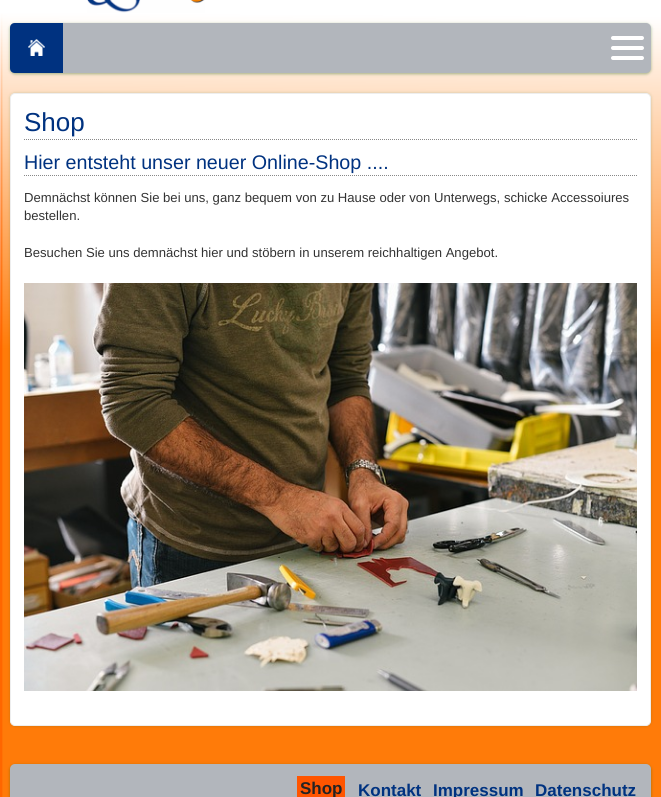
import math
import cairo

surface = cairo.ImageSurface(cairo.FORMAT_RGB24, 661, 797)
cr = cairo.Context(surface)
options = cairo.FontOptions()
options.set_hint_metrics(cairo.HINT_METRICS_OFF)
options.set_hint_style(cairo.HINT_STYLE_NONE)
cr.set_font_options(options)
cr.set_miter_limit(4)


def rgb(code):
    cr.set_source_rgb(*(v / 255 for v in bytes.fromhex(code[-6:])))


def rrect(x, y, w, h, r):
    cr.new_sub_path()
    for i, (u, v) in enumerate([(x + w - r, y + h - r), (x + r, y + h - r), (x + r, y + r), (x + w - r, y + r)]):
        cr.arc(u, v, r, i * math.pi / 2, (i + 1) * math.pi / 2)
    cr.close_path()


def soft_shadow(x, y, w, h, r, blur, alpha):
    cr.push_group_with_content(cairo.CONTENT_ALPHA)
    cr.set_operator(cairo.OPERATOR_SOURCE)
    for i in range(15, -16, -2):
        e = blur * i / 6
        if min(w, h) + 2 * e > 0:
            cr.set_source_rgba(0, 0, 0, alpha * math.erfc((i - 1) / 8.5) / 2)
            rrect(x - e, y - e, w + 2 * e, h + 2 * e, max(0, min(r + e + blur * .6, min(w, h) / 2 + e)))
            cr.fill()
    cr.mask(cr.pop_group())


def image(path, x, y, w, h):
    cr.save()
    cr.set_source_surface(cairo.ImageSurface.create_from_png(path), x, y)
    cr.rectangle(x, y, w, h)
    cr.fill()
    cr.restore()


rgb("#ffffff")
cr.paint()
image("img/1.png", 0, 0, 661, 797)
image("img/2.png", 87, 0, 118, 13)
rgb("#125b07")
soft_shadow(10, 24, 641, 50, 5, 1.5, 0.4)
rgb("#b2b6bc")
rrect(10, 23, 641, 50, 5)
cr.fill()
rgb("#003280")
cr.new_path()
cr.move_to(15, 23)
cr.line_to(63, 23)
cr.line_to(63, 73)
cr.line_to(15, 73)
cr.curve_to(12, 73, 10, 71, 10, 68)
cr.line_to(10, 28)
cr.curve_to(10, 25, 12, 23, 15, 23)
cr.close_path()
cr.fill()
image("img/3.png", 28, 39, 17, 17)
rgb("#ffffff")
rrect(611, 36, 33, 4, 2)
cr.fill()
rrect(611, 46, 33, 4, 2)
cr.fill()
rrect(611, 56, 33, 4, 2)
cr.fill()
rgb("#125b07")
soft_shadow(10, 93, 641, 633, 5, 1.5, 0.2)
rgb("#ffffff")
rrect(10.5, 93.5, 640, 632, 4.5)
cr.fill_preserve()
rgb("#eeeeee")
cr.set_line_width(1)
cr.stroke()
cr.new_path()
cr.move_to(24, 139.5)
cr.line_to(637, 139.5)
rgb("#888888")
cr.set_dash([1, 1])
cr.stroke()
cr.new_path()
cr.move_to(24, 175.5)
cr.line_to(637, 175.5)
cr.stroke()
image("img/4.png", 24, 283, 613, 408)
rgb("#125b07")
soft_shadow(10, 765, 641, 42, 5, 1.5, 0.4)
rgb("#b2b6bc")
rrect(10, 764, 641, 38, 5)
cr.fill()
rgb("#ff5500")
cr.rectangle(297, 776, 48, 21)
cr.fill()
cr.select_font_face("Liberation Sans")
cr.set_font_size(26)
rgb("#003280")
cr.move_to(24, 131)
cr.show_text("Shop")
cr.set_font_size(19.7)
cr.move_to(24, 169)
cr.show_text("Hier entsteht unser neuer Online-Shop ....")
cr.set_font_size(13.1)
rgb("#333333")
for x, y, s in [
    (24, 202, "Demnächst können Sie bei uns, ganz bequem von zu Hause oder von Unterwegs, schicke Accessoiures"),
    (24, 220, "bestellen."),
    (24, 257, "Besuchen Sie uns demnächst hier und stöbern in unserem reichhaltigen Angebot."),
]:
    cr.move_to(x, y)
    cr.show_text(s)
cr.select_font_face("Liberation Sans", cairo.FONT_SLANT_NORMAL, cairo.FONT_WEIGHT_BOLD)
cr.set_font_size(17)
rgb("#232323")
cr.move_to(300, 794)
cr.show_text("Shop")
rgb("#003280")
for x, y, s in [
    (358, 796, "Kontakt"),
    (433, 796, "Impressum"),
    (535, 796, "Datenschutz"),
]:
    cr.move_to(x, y)
    cr.show_text(s)
surface.write_to_png("page.png")
